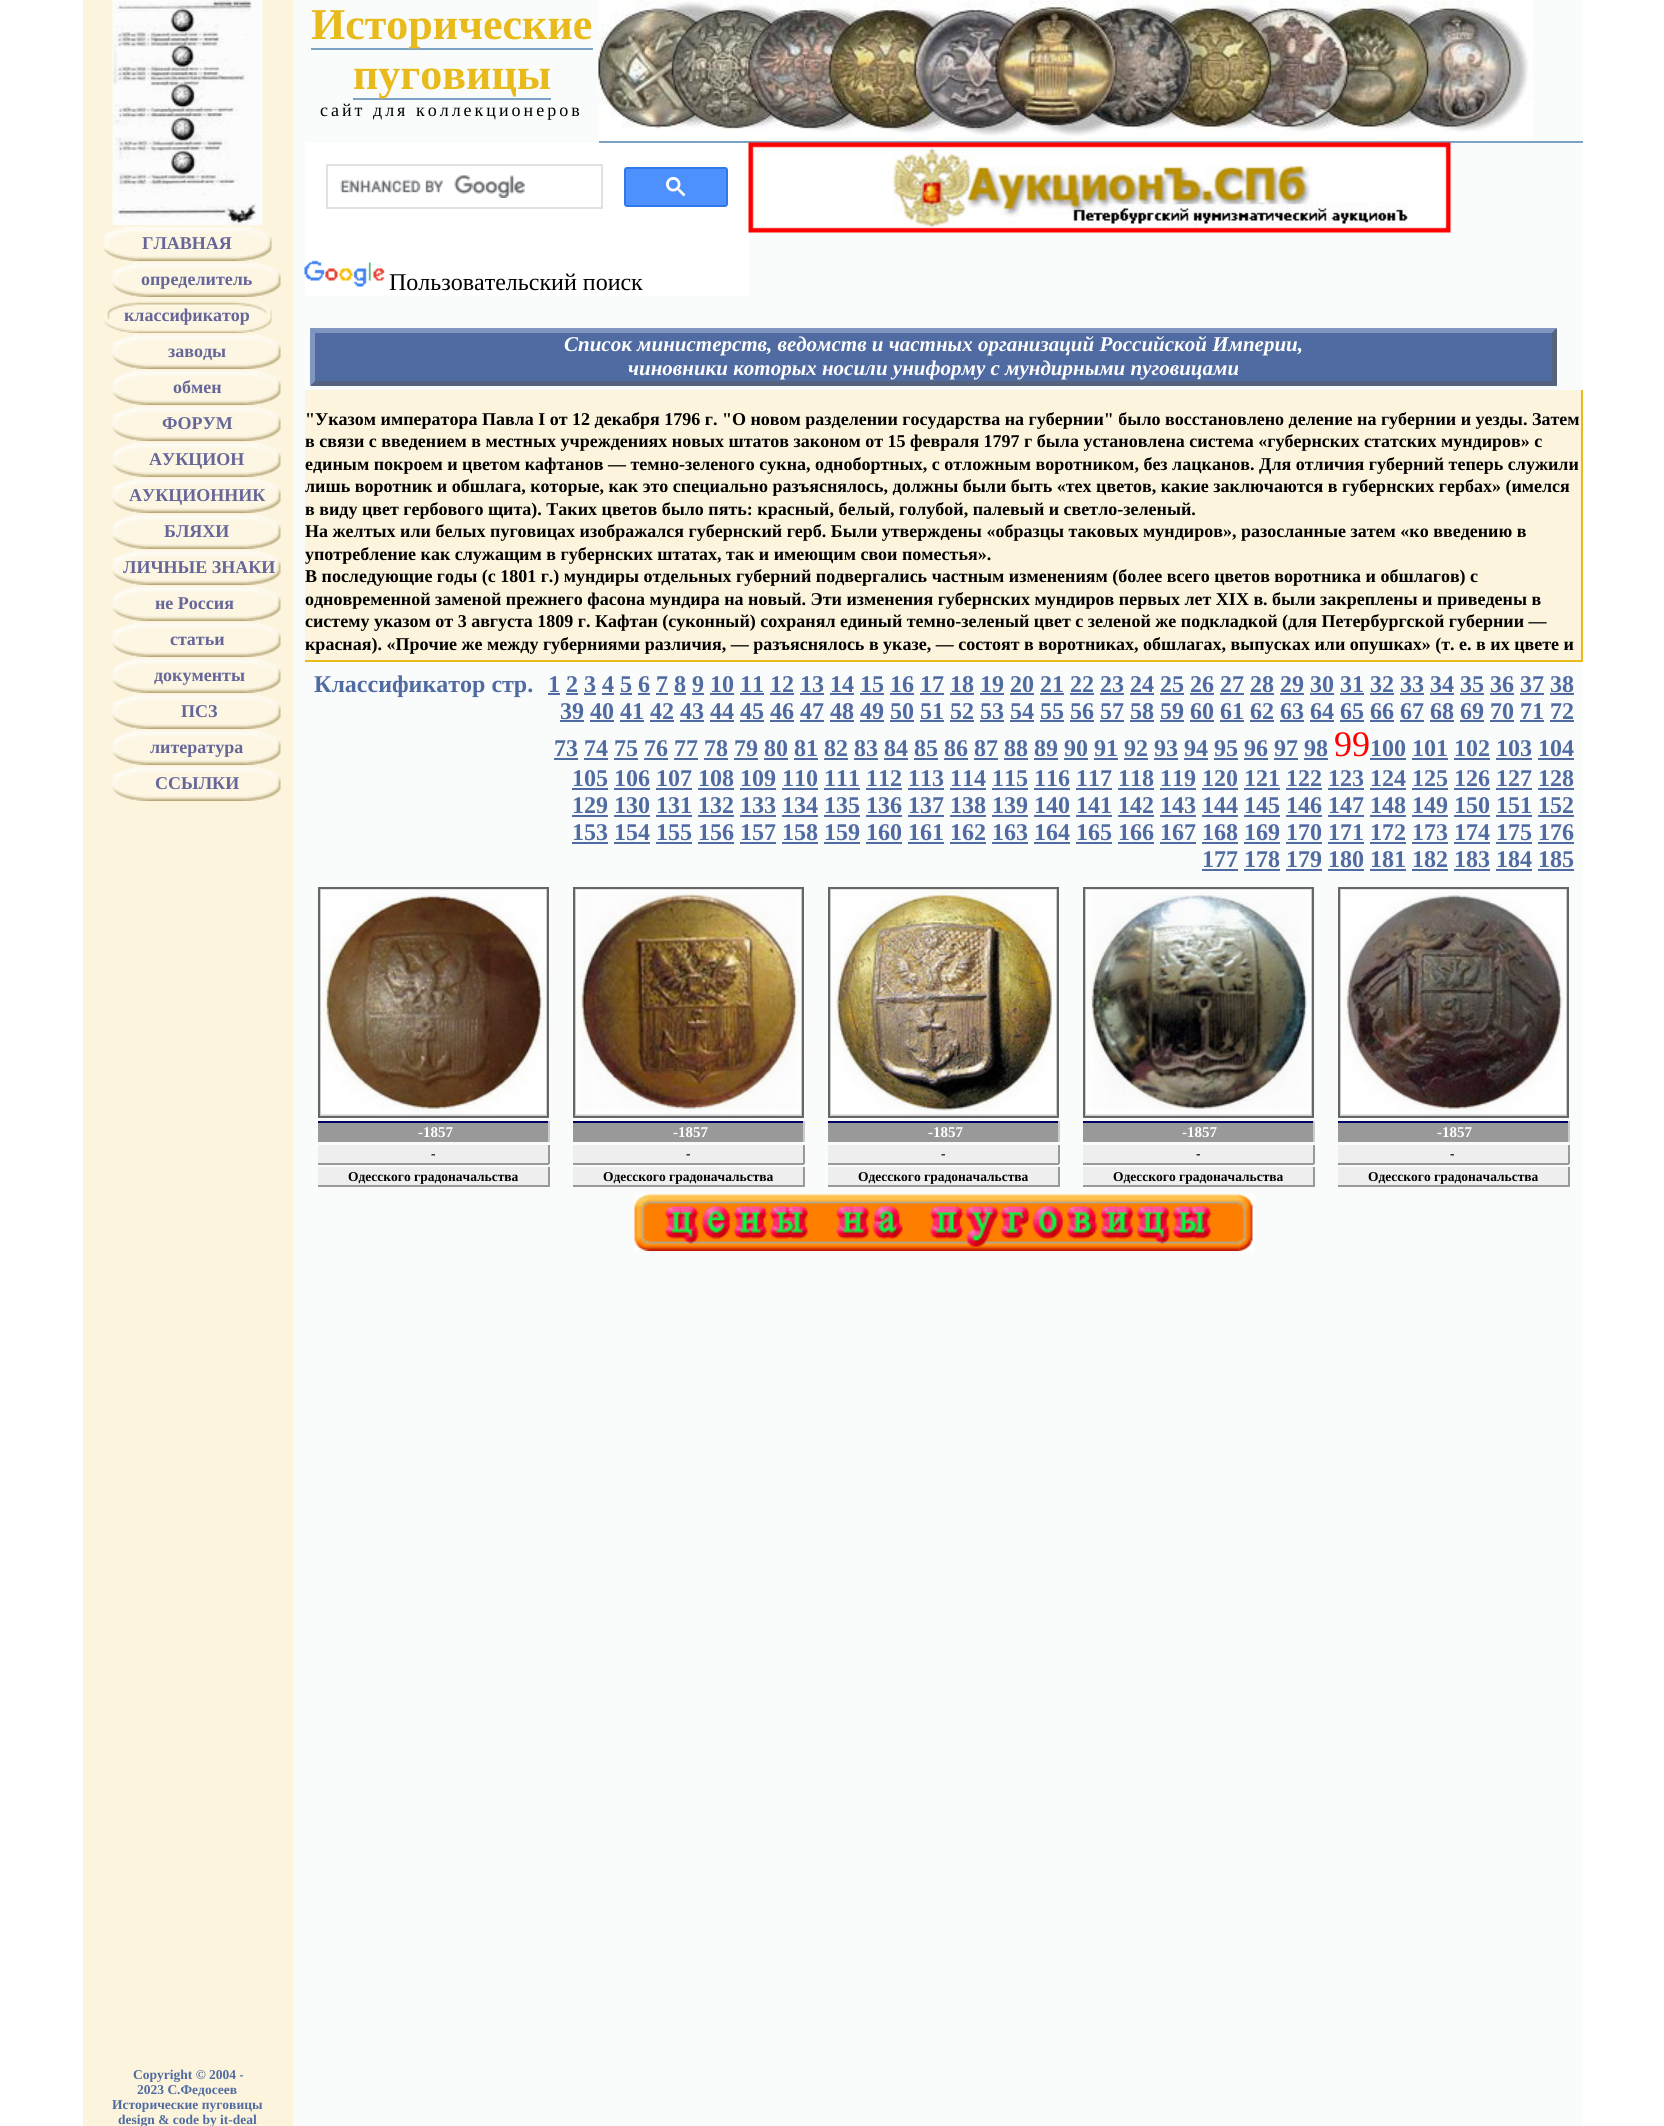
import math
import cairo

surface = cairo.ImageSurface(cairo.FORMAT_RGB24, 1664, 2126)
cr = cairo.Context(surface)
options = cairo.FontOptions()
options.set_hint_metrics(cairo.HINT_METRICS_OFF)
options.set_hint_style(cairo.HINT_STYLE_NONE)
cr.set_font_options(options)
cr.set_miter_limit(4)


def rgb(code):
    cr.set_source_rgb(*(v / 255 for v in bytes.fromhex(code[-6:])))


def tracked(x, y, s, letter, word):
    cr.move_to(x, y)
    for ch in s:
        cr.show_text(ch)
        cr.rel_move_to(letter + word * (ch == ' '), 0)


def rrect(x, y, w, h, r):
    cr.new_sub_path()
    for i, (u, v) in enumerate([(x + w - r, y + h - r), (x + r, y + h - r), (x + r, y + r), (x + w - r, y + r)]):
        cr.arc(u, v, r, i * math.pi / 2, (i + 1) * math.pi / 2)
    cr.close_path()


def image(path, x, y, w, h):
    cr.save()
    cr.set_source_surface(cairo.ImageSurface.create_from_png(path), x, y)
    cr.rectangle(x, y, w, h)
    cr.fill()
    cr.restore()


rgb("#ffffff")
cr.paint()
rgb("#fafcfb")
cr.rectangle(293, 0, 1290, 2126)
cr.fill()
rgb("#fcf4dc")
cr.rectangle(83, 0, 210, 2126)
cr.fill()
image("img/1.png", 112, 0, 151, 225)
image("img/2.png", 103, 226, 169, 35)
image("img/3.png", 112, 262, 169, 35)
image("img/4.png", 103, 299, 169, 34)
image("img/3.png", 112, 334, 169, 35)
image("img/3.png", 112, 370, 169, 35)
image("img/3.png", 112, 406, 169, 35)
image("img/3.png", 112, 442, 169, 35)
image("img/3.png", 112, 478, 169, 35)
image("img/3.png", 112, 514, 169, 35)
image("img/3.png", 112, 550, 169, 35)
image("img/3.png", 112, 586, 169, 35)
image("img/3.png", 112, 622, 169, 35)
image("img/3.png", 112, 658, 169, 35)
image("img/3.png", 112, 694, 169, 35)
image("img/3.png", 112, 730, 169, 35)
image("img/3.png", 112, 766, 169, 35)
for x, y, w, h, color in [
    (311, 48, 282, 2, "#7ca3c4"),
    (353, 98, 198, 2, "#7ca3c4"),
    (599, 141, 984, 2, "#7ca3c4"),
]:
    rgb(color)
    cr.rectangle(x, y, w, h)
    cr.fill()
image("img/5.png", 598, 0, 935, 141)
rgb("#ffffff")
cr.rectangle(305, 143, 444, 153)
cr.fill()
image("img/6.png", 748, 142, 703, 91)
cr.rectangle(327, 165, 275, 43)
rgb("#dfe1e5")
cr.stroke()
image("img/7.png", 340, 175, 185, 23)
rgb("#4d90fe")
rrect(625, 168, 102, 38, 2)
cr.fill_preserve()
rgb("#3079ed")
cr.stroke()
image("img/8.png", 666, 177, 20, 20)
image("img/9.png", 304, 260, 81, 27)
rgb("#506ba1")
cr.rectangle(311, 329, 1246, 57)
cr.fill()
rgb("#8095bf")
cr.new_path()
cr.move_to(310, 328)
cr.line_to(1557, 328)
cr.line_to(1552, 333)
cr.line_to(315, 333)
cr.close_path()
cr.fill()
rgb("#55637f")
cr.new_path()
cr.move_to(1557, 328)
cr.line_to(1557, 386)
cr.line_to(1552, 381)
cr.line_to(1552, 333)
cr.close_path()
cr.fill()
cr.new_path()
cr.move_to(1557, 386)
cr.line_to(310, 386)
cr.line_to(315, 381)
cr.line_to(1552, 381)
cr.close_path()
cr.fill()
rgb("#8095bf")
cr.new_path()
cr.move_to(310, 386)
cr.line_to(310, 328)
cr.line_to(315, 333)
cr.line_to(315, 381)
cr.close_path()
cr.fill()
for x, y, w, h, color in [
    (305, 390, 1276, 270, "#fcf4dc"),
    (1581, 390, 2, 272, "#e8ba1c"),
    (305, 660, 1278, 2, "#e8ba1c"),
    (548, 693, 12, 2, "#506ba1"),
    (566, 693, 12, 2, "#506ba1"),
    (584, 693, 12, 2, "#506ba1"),
    (602, 693, 12, 2, "#506ba1"),
    (620, 693, 12, 2, "#506ba1"),
    (638, 693, 12, 2, "#506ba1"),
    (656, 693, 12, 2, "#506ba1"),
    (674, 693, 12, 2, "#506ba1"),
    (692, 693, 12, 2, "#506ba1"),
    (710, 693, 24, 2, "#506ba1"),
    (740, 693, 24, 2, "#506ba1"),
    (770, 693, 24, 2, "#506ba1"),
    (800, 693, 24, 2, "#506ba1"),
    (830, 693, 24, 2, "#506ba1"),
    (860, 693, 24, 2, "#506ba1"),
    (890, 693, 24, 2, "#506ba1"),
    (920, 693, 24, 2, "#506ba1"),
    (950, 693, 24, 2, "#506ba1"),
    (980, 693, 24, 2, "#506ba1"),
    (1010, 693, 24, 2, "#506ba1"),
    (1040, 693, 24, 2, "#506ba1"),
    (1070, 693, 24, 2, "#506ba1"),
    (1100, 693, 24, 2, "#506ba1"),
    (1130, 693, 24, 2, "#506ba1"),
    (1160, 693, 24, 2, "#506ba1"),
    (1190, 693, 24, 2, "#506ba1"),
    (1220, 693, 24, 2, "#506ba1"),
    (1250, 693, 24, 2, "#506ba1"),
    (1280, 693, 24, 2, "#506ba1"),
    (1310, 693, 24, 2, "#506ba1"),
    (1340, 693, 24, 2, "#506ba1"),
    (1370, 693, 24, 2, "#506ba1"),
    (1400, 693, 24, 2, "#506ba1"),
    (1430, 693, 24, 2, "#506ba1"),
    (1460, 693, 24, 2, "#506ba1"),
    (1490, 693, 24, 2, "#506ba1"),
    (1520, 693, 24, 2, "#506ba1"),
    (1550, 693, 24, 2, "#506ba1"),
    (560, 720, 24, 2, "#506ba1"),
    (590, 720, 24, 2, "#506ba1"),
    (620, 720, 24, 2, "#506ba1"),
    (650, 720, 24, 2, "#506ba1"),
    (680, 720, 24, 2, "#506ba1"),
    (710, 720, 24, 2, "#506ba1"),
    (740, 720, 24, 2, "#506ba1"),
    (770, 720, 24, 2, "#506ba1"),
    (800, 720, 24, 2, "#506ba1"),
    (830, 720, 24, 2, "#506ba1"),
    (860, 720, 24, 2, "#506ba1"),
    (890, 720, 24, 2, "#506ba1"),
    (920, 720, 24, 2, "#506ba1"),
    (950, 720, 24, 2, "#506ba1"),
    (980, 720, 24, 2, "#506ba1"),
    (1010, 720, 24, 2, "#506ba1"),
    (1040, 720, 24, 2, "#506ba1"),
    (1070, 720, 24, 2, "#506ba1"),
    (1100, 720, 24, 2, "#506ba1"),
    (1130, 720, 24, 2, "#506ba1"),
    (1160, 720, 24, 2, "#506ba1"),
    (1190, 720, 24, 2, "#506ba1"),
    (1220, 720, 24, 2, "#506ba1"),
    (1250, 720, 24, 2, "#506ba1"),
    (1280, 720, 24, 2, "#506ba1"),
    (1310, 720, 24, 2, "#506ba1"),
    (1340, 720, 24, 2, "#506ba1"),
    (1370, 720, 24, 2, "#506ba1"),
    (1400, 720, 24, 2, "#506ba1"),
    (1430, 720, 24, 2, "#506ba1"),
    (1460, 720, 24, 2, "#506ba1"),
    (1490, 720, 24, 2, "#506ba1"),
    (1520, 720, 24, 2, "#506ba1"),
    (1550, 720, 24, 2, "#506ba1"),
    (554, 758, 24, 2, "#506ba1"),
    (1370, 758, 36, 2, "#506ba1"),
    (584, 758, 24, 2, "#506ba1"),
    (614, 758, 24, 2, "#506ba1"),
    (644, 758, 24, 2, "#506ba1"),
    (674, 758, 24, 2, "#506ba1"),
    (704, 758, 24, 2, "#506ba1"),
    (734, 758, 24, 2, "#506ba1"),
    (764, 758, 24, 2, "#506ba1"),
    (794, 758, 24, 2, "#506ba1"),
    (824, 758, 24, 2, "#506ba1"),
    (854, 758, 24, 2, "#506ba1"),
    (884, 758, 24, 2, "#506ba1"),
    (914, 758, 24, 2, "#506ba1"),
    (944, 758, 24, 2, "#506ba1"),
    (974, 758, 24, 2, "#506ba1"),
    (1004, 758, 24, 2, "#506ba1"),
    (1034, 758, 24, 2, "#506ba1"),
    (1064, 758, 24, 2, "#506ba1"),
    (1094, 758, 24, 2, "#506ba1"),
    (1124, 758, 24, 2, "#506ba1"),
    (1154, 758, 24, 2, "#506ba1"),
    (1184, 758, 24, 2, "#506ba1"),
    (1214, 758, 24, 2, "#506ba1"),
    (1244, 758, 24, 2, "#506ba1"),
    (1274, 758, 24, 2, "#506ba1"),
    (1304, 758, 24, 2, "#506ba1"),
    (1412, 758, 36, 2, "#506ba1"),
    (1454, 758, 36, 2, "#506ba1"),
    (1496, 758, 36, 2, "#506ba1"),
    (1538, 758, 36, 2, "#506ba1"),
    (572, 788, 36, 2, "#506ba1"),
    (614, 788, 36, 2, "#506ba1"),
    (656, 788, 36, 2, "#506ba1"),
    (698, 788, 36, 2, "#506ba1"),
    (740, 788, 36, 2, "#506ba1"),
    (782, 788, 36, 2, "#506ba1"),
    (824, 788, 36, 2, "#506ba1"),
    (866, 788, 36, 2, "#506ba1"),
    (908, 788, 36, 2, "#506ba1"),
    (950, 788, 36, 2, "#506ba1"),
    (992, 788, 36, 2, "#506ba1"),
    (1034, 788, 36, 2, "#506ba1"),
    (1076, 788, 36, 2, "#506ba1"),
    (1118, 788, 36, 2, "#506ba1"),
    (1160, 788, 36, 2, "#506ba1"),
    (1202, 788, 36, 2, "#506ba1"),
    (1244, 788, 36, 2, "#506ba1"),
    (1286, 788, 36, 2, "#506ba1"),
    (1328, 788, 36, 2, "#506ba1"),
    (1370, 788, 36, 2, "#506ba1"),
    (1412, 788, 36, 2, "#506ba1"),
    (1454, 788, 36, 2, "#506ba1"),
    (1496, 788, 36, 2, "#506ba1"),
    (1538, 788, 36, 2, "#506ba1"),
    (572, 815, 36, 2, "#506ba1"),
    (614, 815, 36, 2, "#506ba1"),
    (656, 815, 36, 2, "#506ba1"),
    (698, 815, 36, 2, "#506ba1"),
    (740, 815, 36, 2, "#506ba1"),
    (782, 815, 36, 2, "#506ba1"),
    (824, 815, 36, 2, "#506ba1"),
    (866, 815, 36, 2, "#506ba1"),
    (908, 815, 36, 2, "#506ba1"),
    (950, 815, 36, 2, "#506ba1"),
    (992, 815, 36, 2, "#506ba1"),
    (1034, 815, 36, 2, "#506ba1"),
    (1076, 815, 36, 2, "#506ba1"),
    (1118, 815, 36, 2, "#506ba1"),
    (1160, 815, 36, 2, "#506ba1"),
    (1202, 815, 36, 2, "#506ba1"),
    (1244, 815, 36, 2, "#506ba1"),
    (1286, 815, 36, 2, "#506ba1"),
    (1328, 815, 36, 2, "#506ba1"),
    (1370, 815, 36, 2, "#506ba1"),
    (1412, 815, 36, 2, "#506ba1"),
    (1454, 815, 36, 2, "#506ba1"),
    (1496, 815, 36, 2, "#506ba1"),
    (1538, 815, 36, 2, "#506ba1"),
    (572, 842, 36, 2, "#506ba1"),
    (614, 842, 36, 2, "#506ba1"),
    (656, 842, 36, 2, "#506ba1"),
    (698, 842, 36, 2, "#506ba1"),
    (740, 842, 36, 2, "#506ba1"),
    (782, 842, 36, 2, "#506ba1"),
    (824, 842, 36, 2, "#506ba1"),
    (866, 842, 36, 2, "#506ba1"),
    (908, 842, 36, 2, "#506ba1"),
    (950, 842, 36, 2, "#506ba1"),
    (992, 842, 36, 2, "#506ba1"),
    (1034, 842, 36, 2, "#506ba1"),
    (1076, 842, 36, 2, "#506ba1"),
    (1118, 842, 36, 2, "#506ba1"),
    (1160, 842, 36, 2, "#506ba1"),
    (1202, 842, 36, 2, "#506ba1"),
    (1244, 842, 36, 2, "#506ba1"),
    (1286, 842, 36, 2, "#506ba1"),
    (1328, 842, 36, 2, "#506ba1"),
    (1370, 842, 36, 2, "#506ba1"),
    (1412, 842, 36, 2, "#506ba1"),
    (1454, 842, 36, 2, "#506ba1"),
    (1496, 842, 36, 2, "#506ba1"),
    (1538, 842, 36, 2, "#506ba1"),
    (1202, 869, 36, 2, "#506ba1"),
    (1244, 869, 36, 2, "#506ba1"),
    (1286, 869, 36, 2, "#506ba1"),
    (1328, 869, 36, 2, "#506ba1"),
    (1370, 869, 36, 2, "#506ba1"),
    (1412, 869, 36, 2, "#506ba1"),
    (1454, 869, 36, 2, "#506ba1"),
    (1496, 869, 36, 2, "#506ba1"),
    (1538, 869, 36, 2, "#506ba1"),
]:
    rgb(color)
    cr.rectangle(x, y, w, h)
    cr.fill()
rgb("#cccccc")
cr.rectangle(319, 888, 229, 229)
cr.fill_preserve()
rgb("#666666")
cr.stroke()
image("img/10.png", 321, 889, 225, 226)
for x, y, w, h, color in [
    (318, 1123, 230, 19, "#999999"),
    (318, 1121, 231, 2, "#000066"),
    (548, 1121, 2, 21, "#cccccc"),
    (318, 1145, 230, 18, "#eeeeee"),
    (548, 1145, 2, 19, "#999999"),
    (318, 1163, 231, 2, "#999999"),
    (318, 1167, 230, 18, "#eeeeee"),
    (548, 1167, 2, 20, "#999999"),
    (318, 1185, 231, 2, "#999999"),
]:
    rgb(color)
    cr.rectangle(x, y, w, h)
    cr.fill()
rgb("#cccccc")
cr.rectangle(574, 888, 229, 229)
cr.fill_preserve()
rgb("#666666")
cr.stroke()
image("img/11.png", 576, 889, 225, 226)
for x, y, w, h, color in [
    (573, 1123, 230, 19, "#999999"),
    (573, 1121, 231, 2, "#000066"),
    (803, 1121, 2, 21, "#cccccc"),
    (573, 1145, 230, 18, "#eeeeee"),
    (803, 1145, 2, 19, "#999999"),
    (573, 1163, 231, 2, "#999999"),
    (573, 1167, 230, 18, "#eeeeee"),
    (803, 1167, 2, 20, "#999999"),
    (573, 1185, 231, 2, "#999999"),
]:
    rgb(color)
    cr.rectangle(x, y, w, h)
    cr.fill()
rgb("#cccccc")
cr.rectangle(829, 888, 229, 229)
cr.fill_preserve()
rgb("#666666")
cr.stroke()
image("img/12.png", 831, 889, 225, 226)
for x, y, w, h, color in [
    (828, 1123, 230, 19, "#999999"),
    (828, 1121, 231, 2, "#000066"),
    (1058, 1121, 2, 21, "#cccccc"),
    (828, 1145, 230, 18, "#eeeeee"),
    (1058, 1145, 2, 19, "#999999"),
    (828, 1163, 231, 2, "#999999"),
    (828, 1167, 230, 18, "#eeeeee"),
    (1058, 1167, 2, 20, "#999999"),
    (828, 1185, 231, 2, "#999999"),
]:
    rgb(color)
    cr.rectangle(x, y, w, h)
    cr.fill()
rgb("#cccccc")
cr.rectangle(1084, 888, 229, 229)
cr.fill_preserve()
rgb("#666666")
cr.stroke()
image("img/13.png", 1086, 889, 225, 226)
for x, y, w, h, color in [
    (1083, 1123, 230, 19, "#999999"),
    (1083, 1121, 231, 2, "#000066"),
    (1313, 1121, 2, 21, "#cccccc"),
    (1083, 1145, 230, 18, "#eeeeee"),
    (1313, 1145, 2, 19, "#999999"),
    (1083, 1163, 231, 2, "#999999"),
    (1083, 1167, 230, 18, "#eeeeee"),
    (1313, 1167, 2, 20, "#999999"),
    (1083, 1185, 231, 2, "#999999"),
]:
    rgb(color)
    cr.rectangle(x, y, w, h)
    cr.fill()
rgb("#cccccc")
cr.rectangle(1339, 888, 229, 229)
cr.fill_preserve()
rgb("#666666")
cr.stroke()
image("img/14.png", 1341, 889, 225, 226)
for x, y, w, h, color in [
    (1338, 1123, 230, 19, "#999999"),
    (1338, 1121, 231, 2, "#000066"),
    (1568, 1121, 2, 21, "#cccccc"),
    (1338, 1145, 230, 18, "#eeeeee"),
    (1568, 1145, 2, 19, "#999999"),
    (1338, 1163, 231, 2, "#999999"),
    (1338, 1167, 230, 18, "#eeeeee"),
    (1568, 1167, 2, 20, "#999999"),
    (1338, 1185, 231, 2, "#999999"),
]:
    rgb(color)
    cr.rectangle(x, y, w, h)
    cr.fill()
image("img/15.png", 634, 1194, 620, 57)
cr.select_font_face("Liberation Serif", cairo.FONT_SLANT_NORMAL, cairo.FONT_WEIGHT_BOLD)
cr.set_font_size(18)
rgb("#666699")
for x, y, s in [
    (142, 249, "ГЛАВНАЯ"),
    (141, 285, "определитель"),
    (124, 321, "классификатор"),
    (168, 357, "заводы"),
    (173, 393, "обмен"),
    (162, 429, "ФОРУМ"),
    (149, 465, "АУКЦИОН"),
    (129, 501, "АУКЦИОННИК"),
    (164, 537, "БЛЯХИ"),
    (123, 573, "ЛИЧНЫЕ ЗНАКИ"),
    (155, 609, "не Россия"),
    (170, 645, "статьи"),
    (154, 681, "документы"),
    (181, 717, "ПСЗ"),
    (150, 753, "литература"),
    (155, 789, "ССЫЛКИ"),
]:
    cr.move_to(x, y)
    cr.show_text(s)
cr.set_font_size(13.5)
rgb("#506ba1")
for x, y, s in [
    (133, 2079, "Copyright © 2004 -"),
    (137, 2094, "2023 С.Федосеев"),
    (112, 2109, "Исторические пуговицы"),
    (118, 2124, "design & code by it-deal"),
]:
    cr.move_to(x, y)
    cr.show_text(s)
cr.set_font_size(44)
rgb("#e8ba1c")
cr.move_to(311, 39)
cr.show_text("Исторические")
cr.move_to(353, 89)
cr.show_text("пуговицы")
cr.select_font_face("Liberation Serif")
cr.set_font_size(18)
rgb("#000000")
tracked(320, 116, "сайт для коллекционеров", 3, 0)
cr.set_font_size(24)
cr.move_to(389, 290)
cr.show_text("Пользовательский поиск")
cr.select_font_face("Liberation Serif", cairo.FONT_SLANT_ITALIC, cairo.FONT_WEIGHT_BOLD)
cr.set_font_size(21)
rgb("#ffffff")
cr.move_to(564, 351)
cr.show_text("Список министерств, ведомств и частных организаций Российской Империи,")
cr.move_to(628, 375)
cr.show_text("чиновники которых носили униформу с мундирными пуговицами")
cr.select_font_face("Liberation Serif", cairo.FONT_SLANT_NORMAL, cairo.FONT_WEIGHT_BOLD)
cr.set_font_size(18)
rgb("#000000")
for x, y, s in [
    (305, 425, "\"Указом императора Павла I от 12 декабря 1796 г. \"О новом разделении государства на губернии\" было восстановлено деление на губернии и уезды. Затем"),
    (305, 447, "в связи с введением в местных учреждениях новых штатов законом от 15 февраля 1797 г была установлена система «губернских статских мундиров» с"),
    (305, 470, "единым покроем и цветом кафтанов — темно-зеленого сукна, однобортных, с отложным воротником, без лацканов. Для отличия губерний теперь служили"),
    (305, 492, "лишь воротник и обшлага, которые, как это специально разъяснялось, должны были быть «тех цветов, какие заключаются в губернских гербах» (имелся"),
    (305, 515, "в виду цвет гербового щита). Таких цветов было пять: красный, белый, голубой, палевый и светло-зеленый."),
    (305, 537, "На желтых или белых пуговицах изображался губернский герб. Были утверждены «образцы таковых мундиров», разосланные затем «ко введению в"),
    (305, 560, "употребление как служащим в губернских штатах, так и имеющим свои поместья»."),
    (305, 582, "В последующие годы (с 1801 г.) мундиры отдельных губерний подвергались частным изменениям (более всего цветов воротника и обшлагов) с"),
    (305, 605, "одновременной заменой прежнего фасона мундира на новый. Эти изменения губернских мундиров первых лет XIX в. были закреплены и приведены в"),
    (305, 627, "систему указом от 3 августа 1809 г. Кафтан (суконный) сохранял единый темно-зеленый цвет с зеленой же подкладкой (для Петербургской губернии —"),
    (305, 650, "красная). «Прочие же между губерниями различия, — разъяснялось в указе, — состоят в воротниках, обшлагах, выпусках или опушках» (т. е. в их цвете и"),
]:
    cr.move_to(x, y)
    cr.show_text(s)
cr.set_font_size(24)
rgb("#506ba1")
for x, y, s in [
    (314, 692, "Классификатор стр."),
    (548, 692, "1 2 3 4 5 6 7 8 9 10 11 12 13 14 15 16 17 18 19 20 21 22 23 24 25 26 27 28 29 30 31 32 33 34 35 36 37 38"),
    (560, 719, "39 40 41 42 43 44 45 46 47 48 49 50 51 52 53 54 55 56 57 58 59 60 61 62 63 64 65 66 67 68 69 70 71 72"),
    (554, 756, "73 74 75 76 77 78 79 80 81 82 83 84 85 86 87 88 89 90 91 92 93 94 95 96 97 98"),
]:
    cr.move_to(x, y)
    cr.show_text(s)
cr.select_font_face("Liberation Serif")
cr.set_font_size(36)
rgb("#ff0000")
cr.move_to(1334, 756)
cr.show_text("99")
cr.select_font_face("Liberation Serif", cairo.FONT_SLANT_NORMAL, cairo.FONT_WEIGHT_BOLD)
cr.set_font_size(24)
rgb("#506ba1")
for x, y, s in [
    (1370, 756, "100 101 102 103 104"),
    (572, 786, "105 106 107 108 109 110 111 112 113 114 115 116 117 118 119 120 121 122 123 124 125 126 127 128"),
    (572, 813, "129 130 131 132 133 134 135 136 137 138 139 140 141 142 143 144 145 146 147 148 149 150 151 152"),
    (572, 840, "153 154 155 156 157 158 159 160 161 162 163 164 165 166 167 168 169 170 171 172 173 174 175 176"),
    (1202, 867, "177 178 179 180 181 182 183 184 185"),
]:
    cr.move_to(x, y)
    cr.show_text(s)
cr.set_font_size(15)
rgb("#ffffff")
cr.move_to(418, 1137)
cr.show_text("-1857")
cr.set_font_size(13.5)
rgb("#000000")
cr.move_to(431, 1158)
cr.show_text("-")
cr.move_to(348, 1181)
cr.show_text("Одесского градоначальства")
cr.set_font_size(15)
rgb("#ffffff")
cr.move_to(673, 1137)
cr.show_text("-1857")
cr.set_font_size(13.5)
rgb("#000000")
cr.move_to(686, 1158)
cr.show_text("-")
cr.move_to(603, 1181)
cr.show_text("Одесского градоначальства")
cr.set_font_size(15)
rgb("#ffffff")
cr.move_to(928, 1137)
cr.show_text("-1857")
cr.set_font_size(13.5)
rgb("#000000")
cr.move_to(941, 1158)
cr.show_text("-")
cr.move_to(858, 1181)
cr.show_text("Одесского градоначальства")
cr.set_font_size(15)
rgb("#ffffff")
cr.move_to(1182, 1137)
cr.show_text("-1857")
cr.set_font_size(13.5)
rgb("#000000")
cr.move_to(1196, 1158)
cr.show_text("-")
cr.move_to(1113, 1181)
cr.show_text("Одесского градоначальства")
cr.set_font_size(15)
rgb("#ffffff")
cr.move_to(1437, 1137)
cr.show_text("-1857")
cr.set_font_size(13.5)
rgb("#000000")
cr.move_to(1450, 1158)
cr.show_text("-")
cr.move_to(1368, 1181)
cr.show_text("Одесского градоначальства")
surface.write_to_png("page.png")
